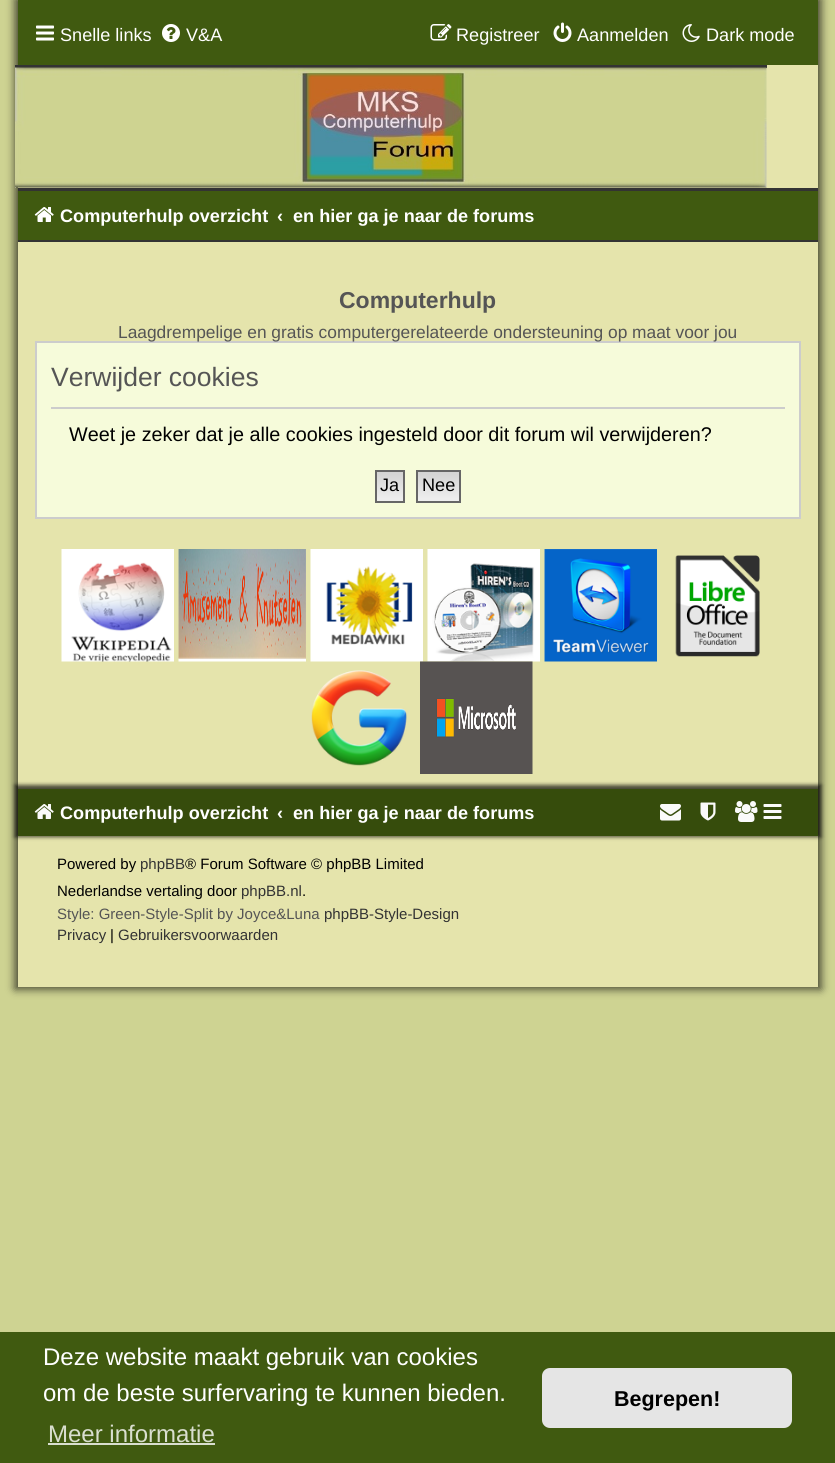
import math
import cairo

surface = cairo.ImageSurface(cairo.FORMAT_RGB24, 835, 1463)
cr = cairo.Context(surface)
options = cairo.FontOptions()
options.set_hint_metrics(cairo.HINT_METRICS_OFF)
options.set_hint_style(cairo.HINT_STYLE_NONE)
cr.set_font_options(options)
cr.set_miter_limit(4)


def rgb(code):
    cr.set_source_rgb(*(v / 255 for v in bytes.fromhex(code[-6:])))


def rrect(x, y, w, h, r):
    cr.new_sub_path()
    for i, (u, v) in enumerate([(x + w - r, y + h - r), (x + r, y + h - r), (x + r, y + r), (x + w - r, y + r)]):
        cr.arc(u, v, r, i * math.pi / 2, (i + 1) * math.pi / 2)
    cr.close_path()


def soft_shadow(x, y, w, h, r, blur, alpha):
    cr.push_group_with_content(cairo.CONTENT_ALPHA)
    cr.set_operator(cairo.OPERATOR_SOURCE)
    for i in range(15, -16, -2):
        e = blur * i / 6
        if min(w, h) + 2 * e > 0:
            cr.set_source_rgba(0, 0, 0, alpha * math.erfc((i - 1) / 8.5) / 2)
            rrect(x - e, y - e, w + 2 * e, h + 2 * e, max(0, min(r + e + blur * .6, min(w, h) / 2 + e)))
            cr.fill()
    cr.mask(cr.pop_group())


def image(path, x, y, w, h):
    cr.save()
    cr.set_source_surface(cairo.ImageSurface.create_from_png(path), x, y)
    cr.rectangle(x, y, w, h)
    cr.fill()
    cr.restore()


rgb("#ced392")
cr.paint()
rgb("#020202")
soft_shadow(15, -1, 806, 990, 0, 4.5, 0.7)
rgb("#e5e4ac")
cr.rectangle(18, 65, 800, 922)
cr.fill()
rgb("#405a10")
cr.rectangle(18, 0, 800, 65)
cr.fill()
image("img/1.png", 36, 25, 18, 16)
image("img/2.png", 162, 24, 18, 18)
image("img/3.png", 430, 24, 22, 17)
image("img/4.png", 553, 22, 19, 20)
image("img/5.png", 682, 24, 18, 18)
rgb("#333333")
cr.rectangle(15, 65, 752, 3)
cr.fill()
image("img/6.png", 15, 67, 752, 121)
for x, y, w, h, color in [
    (18, 191, 800, 49, "#405a10"),
    (18, 188, 800, 3, "#333333"),
    (18, 240, 800, 2, "#333333"),
]:
    rgb(color)
    cr.rectangle(x, y, w, h)
    cr.fill()
image("img/7.png", 34, 207, 20, 15)
rgb("#f6fbda")
cr.rectangle(36, 342, 764, 176)
cr.fill_preserve()
rgb("#cccccc")
cr.stroke()
cr.rectangle(51, 407, 734, 2)
cr.fill()
gradient = cairo.LinearGradient(390, 471, 390, 501)
gradient.add_color_stop_rgba(0, 0.824, 0.824, 0.824, 1)
gradient.add_color_stop_rgba(1, 0.937, 0.937, 0.937, 1)
cr.set_source(gradient)
cr.rectangle(377, 472, 26, 29)
cr.fill()
cr.rectangle(376, 471, 28, 31)
rgb("#666666")
cr.stroke()
gradient = cairo.LinearGradient(438, 471, 438, 501)
gradient.add_color_stop_rgba(0, 0.824, 0.824, 0.824, 1)
gradient.add_color_stop_rgba(1, 0.937, 0.937, 0.937, 1)
cr.set_source(gradient)
cr.rectangle(418, 472, 41, 29)
cr.fill()
cr.rectangle(417, 471, 43, 31)
rgb("#666666")
cr.stroke()
image("img/8.png", 61, 549, 113, 113)
image("img/9.png", 178, 549, 128, 113)
image("img/10.png", 310, 549, 113, 113)
image("img/11.png", 427, 549, 113, 113)
image("img/12.png", 544, 549, 113, 113)
image("img/13.png", 675, 555, 85, 102)
image("img/14.png", 311, 670, 96, 96)
image("img/15.png", 420, 661, 113, 113)
rgb("#020202")
soft_shadow(15, 785, 806, 52, 0, 2, 0.7)
rgb("#364c0c")
cr.rectangle(18, 789, 800, 47)
cr.fill()
image("img/16.png", 34, 804, 20, 15)
image("img/17.png", 660, 804, 21, 17)
image("img/18.png", 700, 802, 16, 19)
image("img/19.png", 735, 801, 23, 21)
image("img/20.png", 763, 804, 19, 15)
rgb("#405a10")
cr.rectangle(0, 1332, 835, 131)
cr.fill()
rgb("#d9decf")
cr.rectangle(48, 1443, 167, 2)
cr.fill()
rgb("#e5e5e5")
rrect(542, 1368, 250, 60, 8)
cr.fill()
cr.select_font_face("Liberation Sans")
cr.set_font_size(18.1)
rgb("#ffffff")
for x, y, s in [
    (60, 41, "Snelle links"),
    (186, 41, "V&A"),
    (456, 41, "Registreer"),
    (577, 41, "Aanmelden"),
    (706, 41, "Dark mode"),
]:
    cr.move_to(x, y)
    cr.show_text(s)
cr.select_font_face("Liberation Sans", cairo.FONT_SLANT_NORMAL, cairo.FONT_WEIGHT_BOLD)
for x, y, s in [
    (60, 222, "Computerhulp overzicht"),
    (277, 222, "‹"),
    (293, 222, "en hier ga je naar de forums"),
]:
    cr.move_to(x, y)
    cr.show_text(s)
cr.set_font_size(23)
rgb("#555555")
cr.move_to(339, 308)
cr.show_text("Computerhulp")
cr.select_font_face("Liberation Sans")
cr.set_font_size(17.35)
cr.move_to(118, 338)
cr.show_text("Laagdrempelige en gratis computergerelateerde ondersteuning op maat voor jou")
cr.set_font_size(26.5)
cr.move_to(51, 386)
cr.show_text("Verwijder cookies")
cr.set_font_size(19.8)
rgb("#000000")
cr.move_to(69, 441)
cr.show_text("Weet je zeker dat je alle cookies ingesteld door dit forum wil verwijderen?")
cr.set_font_size(18.1)
cr.move_to(380, 491)
cr.show_text("Ja")
cr.move_to(422, 491)
cr.show_text("Nee")
cr.select_font_face("Liberation Sans", cairo.FONT_SLANT_NORMAL, cairo.FONT_WEIGHT_BOLD)
rgb("#ffffff")
for x, y, s in [
    (60, 819, "Computerhulp overzicht"),
    (277, 819, "‹"),
    (293, 819, "en hier ga je naar de forums"),
]:
    cr.move_to(x, y)
    cr.show_text(s)
cr.select_font_face("Liberation Sans")
cr.set_font_size(15)
rgb("#000000")
cr.move_to(57, 869)
cr.show_text("Powered by")
rgb("#333333")
cr.move_to(140, 869)
cr.show_text("phpBB")
rgb("#000000")
cr.move_to(185, 869)
cr.show_text("® Forum Software © phpBB Limited")
cr.move_to(57, 896)
cr.show_text("Nederlandse vertaling door")
rgb("#333333")
cr.move_to(241, 896)
cr.show_text("phpBB.nl")
rgb("#000000")
cr.move_to(302, 896)
cr.show_text(".")
rgb("#555555")
cr.move_to(57, 919)
cr.show_text("Style: Green-Style-Split by Joyce&Luna")
rgb("#333333")
cr.move_to(324, 919)
cr.show_text("phpBB-Style-Design")
cr.move_to(57, 940)
cr.show_text("Privacy")
rgb("#000000")
cr.move_to(110, 940)
cr.show_text("|")
rgb("#333333")
cr.move_to(118, 940)
cr.show_text("Gebruikersvoorwaarden")
cr.set_font_size(24)
rgb("#ffffff")
cr.move_to(43, 1365)
cr.show_text("Deze website maakt gebruik van cookies")
cr.move_to(43, 1401)
cr.show_text("om de beste surfervaring te kunnen bieden.")
rgb("#d9decf")
cr.move_to(48, 1442)
cr.show_text("Meer informatie")
cr.select_font_face("Liberation Sans", cairo.FONT_SLANT_NORMAL, cairo.FONT_WEIGHT_BOLD)
cr.set_font_size(21.5)
rgb("#000000")
cr.move_to(614, 1406)
cr.show_text("Begrepen!")
surface.write_to_png("page.png")
